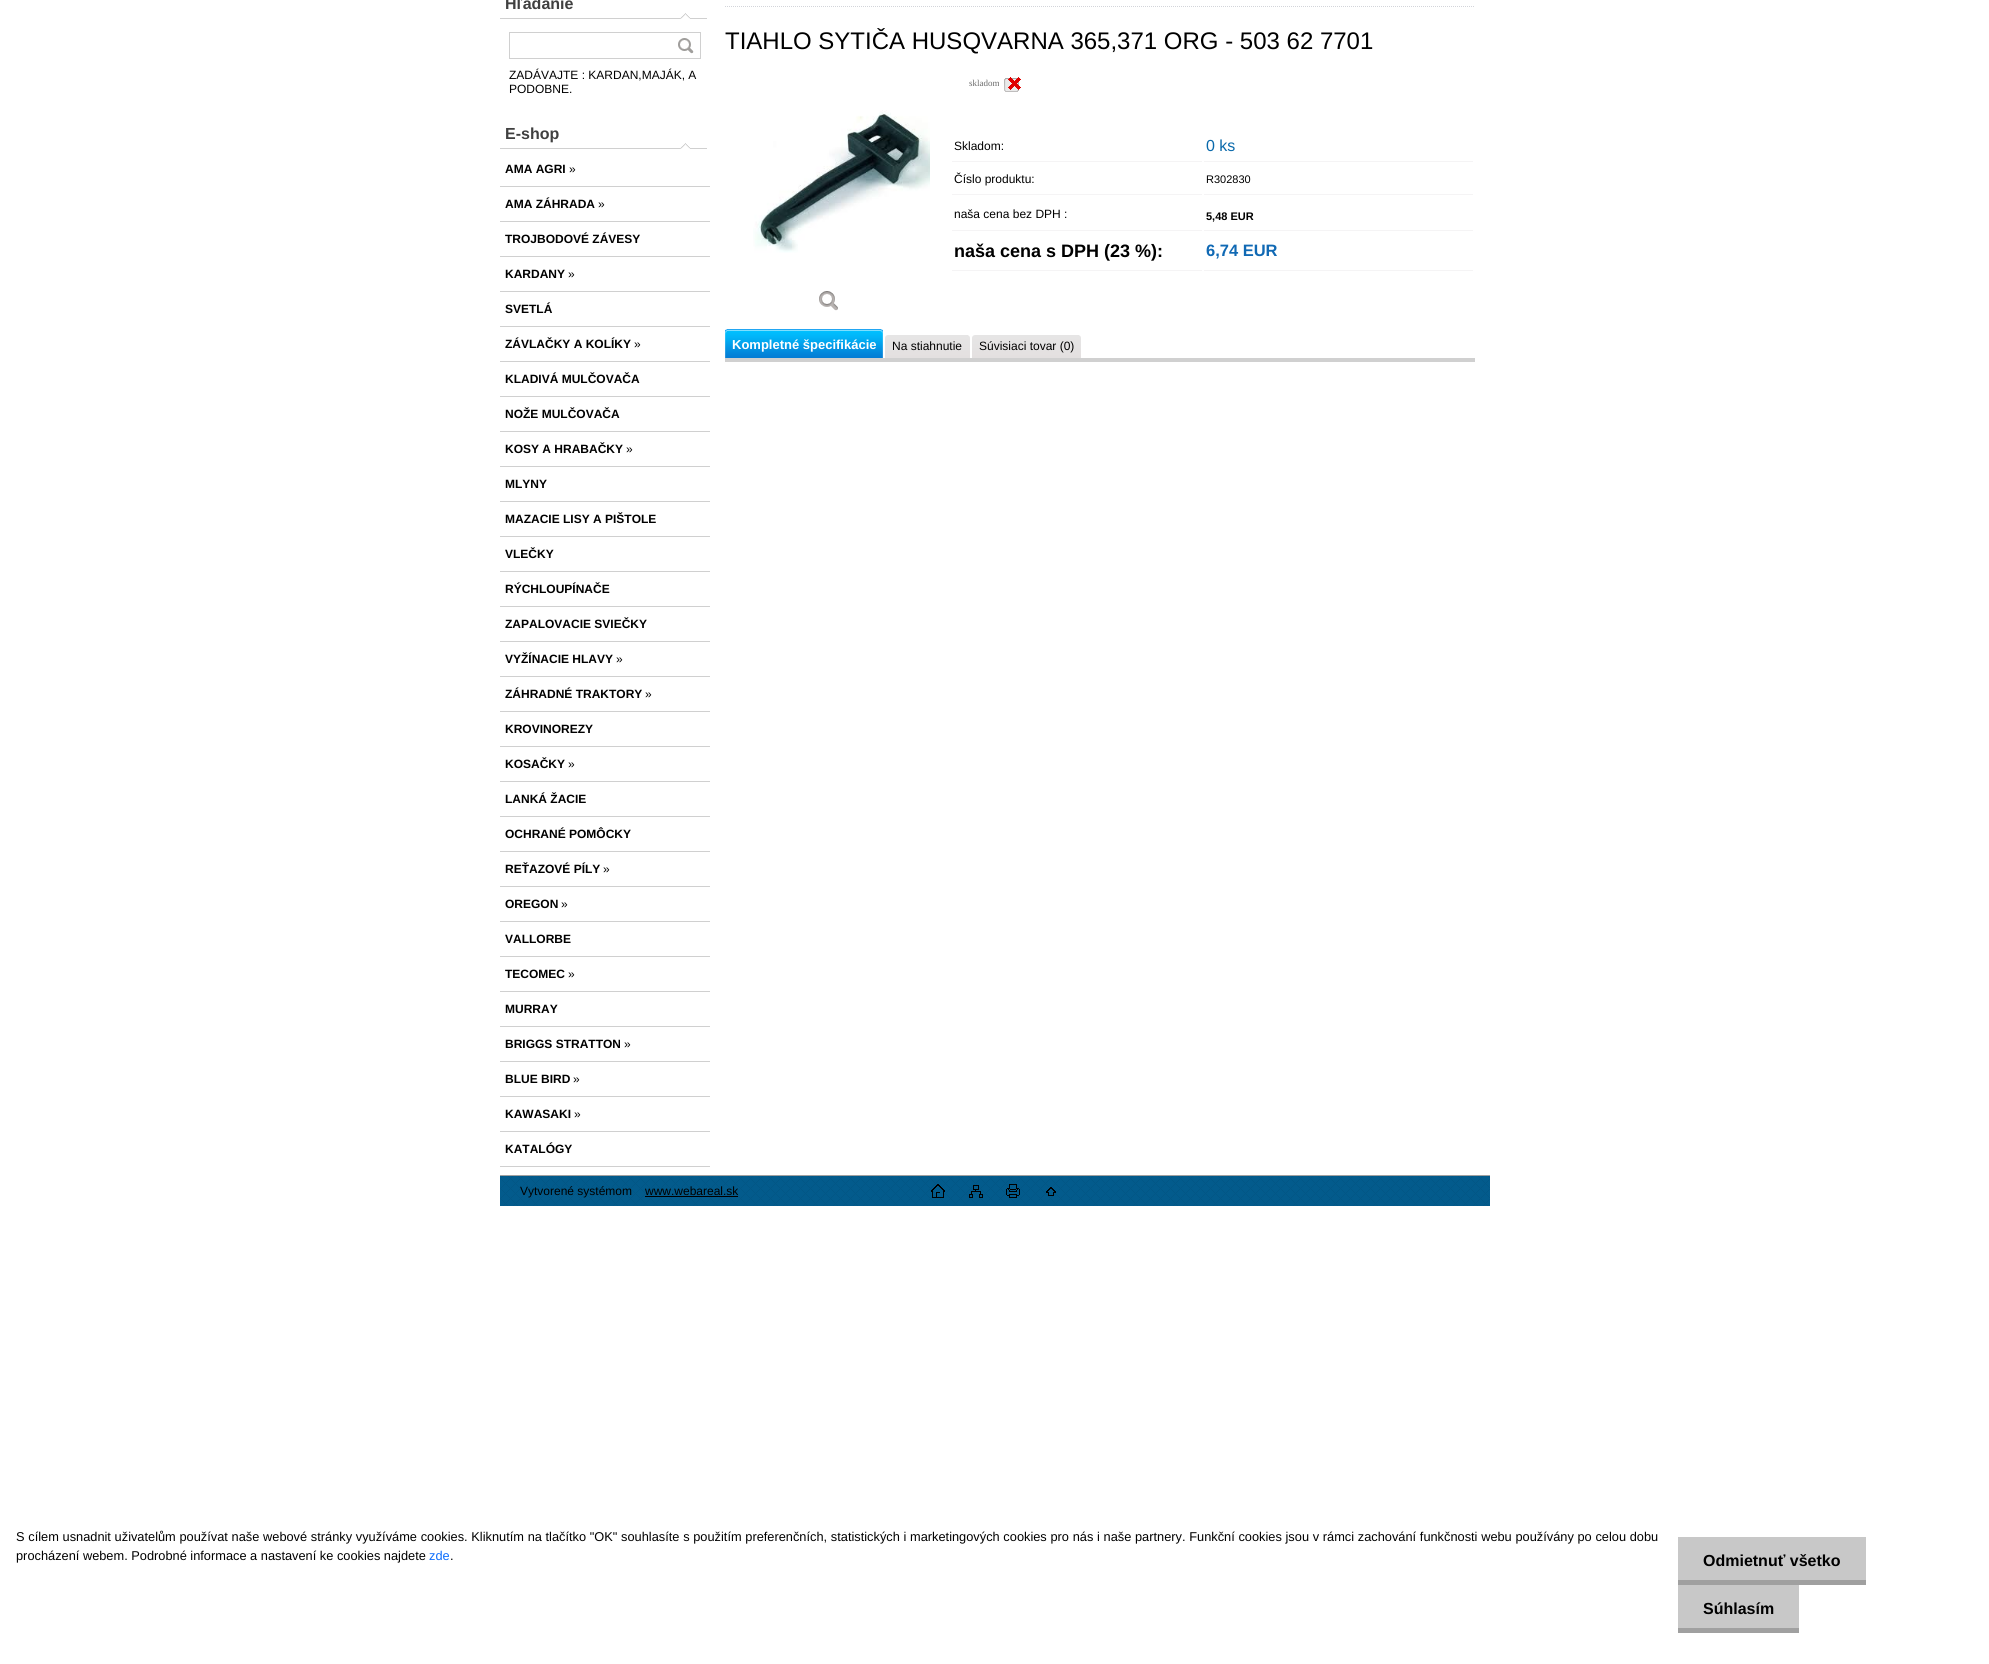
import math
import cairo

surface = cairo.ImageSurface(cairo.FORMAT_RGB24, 1989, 1664)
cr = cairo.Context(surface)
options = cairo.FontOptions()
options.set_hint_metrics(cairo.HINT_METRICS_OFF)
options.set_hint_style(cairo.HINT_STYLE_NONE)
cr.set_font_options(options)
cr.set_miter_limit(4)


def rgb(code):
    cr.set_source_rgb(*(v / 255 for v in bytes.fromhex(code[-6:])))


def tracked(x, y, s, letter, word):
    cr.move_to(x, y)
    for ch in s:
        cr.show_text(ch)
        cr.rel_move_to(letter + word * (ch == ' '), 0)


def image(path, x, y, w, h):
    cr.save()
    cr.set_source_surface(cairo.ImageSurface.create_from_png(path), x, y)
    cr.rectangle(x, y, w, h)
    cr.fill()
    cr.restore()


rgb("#ffffff")
cr.paint()
rgb("#035b8c")
cr.rectangle(500, 1176, 990, 30)
cr.fill()
image("img/1.png", 500, 1176, 990, 30)
image("img/2.png", 500, 13, 207, 6)
cr.rectangle(509.5, 32.5, 191, 26)
rgb("#d0d0d0")
cr.set_line_width(1)
cr.stroke()
image("img/3.png", 678, 38, 16, 16)
image("img/2.png", 500, 143, 207, 6)
for x, y, w, h, color in [
    (500, 186, 210, 1, "#d0d0d0"),
    (500, 221, 210, 1, "#d0d0d0"),
    (500, 256, 210, 1, "#d0d0d0"),
    (500, 291, 210, 1, "#d0d0d0"),
    (500, 326, 210, 1, "#d0d0d0"),
    (500, 361, 210, 1, "#d0d0d0"),
    (500, 396, 210, 1, "#d0d0d0"),
    (500, 431, 210, 1, "#d0d0d0"),
    (500, 466, 210, 1, "#d0d0d0"),
    (500, 501, 210, 1, "#d0d0d0"),
    (500, 536, 210, 1, "#d0d0d0"),
    (500, 571, 210, 1, "#d0d0d0"),
    (500, 606, 210, 1, "#d0d0d0"),
    (500, 641, 210, 1, "#d0d0d0"),
    (500, 676, 210, 1, "#d0d0d0"),
    (500, 711, 210, 1, "#d0d0d0"),
    (500, 746, 210, 1, "#d0d0d0"),
    (500, 781, 210, 1, "#d0d0d0"),
    (500, 816, 210, 1, "#d0d0d0"),
    (500, 851, 210, 1, "#d0d0d0"),
    (500, 886, 210, 1, "#d0d0d0"),
    (500, 921, 210, 1, "#d0d0d0"),
    (500, 956, 210, 1, "#d0d0d0"),
    (500, 991, 210, 1, "#d0d0d0"),
    (500, 1026, 210, 1, "#d0d0d0"),
    (500, 1061, 210, 1, "#d0d0d0"),
    (500, 1096, 210, 1, "#d0d0d0"),
    (500, 1131, 210, 1, "#d0d0d0"),
    (500, 1166, 210, 1, "#d0d0d0"),
]:
    rgb(color)
    cr.rectangle(x, y, w, h)
    cr.fill()
cr.new_path()
cr.move_to(725, 6.5)
cr.line_to(1475, 6.5)
rgb("#d3d5da")
cr.set_dash([1, 1])
cr.stroke()
image("img/4.png", 753, 110, 177, 143)
image("img/5.png", 819, 291, 19, 20)
image("img/6.png", 1004, 77, 17, 15)
for x, y, w, h, color in [
    (952, 161, 250, 1, "#f5f4f5"),
    (1204, 161, 269, 1, "#f5f4f5"),
    (952, 194, 250, 1, "#f5f4f5"),
    (1204, 194, 269, 1, "#f5f4f5"),
    (952, 230, 250, 1, "#f5f4f5"),
    (1204, 230, 269, 1, "#f5f4f5"),
    (952, 270, 250, 1, "#f5f4f5"),
    (1204, 270, 269, 1, "#f5f4f5"),
]:
    rgb(color)
    cr.rectangle(x, y, w, h)
    cr.fill()
image("img/7.png", 725, 329, 156, 29)
image("img/8.png", 727, 329, 156, 29)
image("img/9.png", 885, 335, 83, 23)
image("img/10.png", 968, 335, 2, 23)
image("img/11.png", 972, 335, 107, 23)
image("img/12.png", 1079, 335, 2, 23)
for x, y, w, h, color in [
    (725, 358, 750, 4, "#d0d0d0"),
    (500, 1175, 990, 1, "#a0a0a0"),
    (645, 1196, 93, 1, "#000000"),
]:
    rgb(color)
    cr.rectangle(x, y, w, h)
    cr.fill()
image("img/13.png", 931, 1184, 14, 14)
image("img/14.png", 969, 1185, 14, 13)
image("img/15.png", 1006, 1184, 14, 14)
image("img/16.png", 1046, 1187, 10, 9)
for x, y, w, h, color in [
    (1678, 1537, 188, 43, "#c8c8c8"),
    (1678, 1580, 188, 5, "#a0a0a0"),
    (1678, 1585, 121, 43, "#c8c8c8"),
    (1678, 1628, 121, 5, "#a0a0a0"),
]:
    rgb(color)
    cr.rectangle(x, y, w, h)
    cr.fill()
cr.select_font_face("Liberation Sans", cairo.FONT_SLANT_NORMAL, cairo.FONT_WEIGHT_BOLD)
cr.set_font_size(16)
rgb("#404040")
cr.move_to(505, 9)
cr.show_text("Hľadanie")
cr.select_font_face("Liberation Sans")
cr.set_font_size(12)
rgb("#000000")
cr.move_to(509, 79)
cr.show_text("ZADÁVAJTE : KARDAN,MAJÁK, A")
cr.move_to(509, 93)
cr.show_text("PODOBNE.")
cr.select_font_face("Liberation Sans", cairo.FONT_SLANT_NORMAL, cairo.FONT_WEIGHT_BOLD)
cr.set_font_size(16)
rgb("#404040")
cr.move_to(505, 139)
cr.show_text("E-shop")
cr.set_font_size(12)
rgb("#000000")
cr.move_to(505, 173)
cr.show_text("AMA AGRI")
cr.select_font_face("Liberation Sans")
cr.move_to(569, 173)
cr.show_text("»")
cr.select_font_face("Liberation Sans", cairo.FONT_SLANT_NORMAL, cairo.FONT_WEIGHT_BOLD)
cr.move_to(505, 208)
cr.show_text("AMA ZÁHRADA")
cr.select_font_face("Liberation Sans")
cr.move_to(598, 208)
cr.show_text("»")
cr.select_font_face("Liberation Sans", cairo.FONT_SLANT_NORMAL, cairo.FONT_WEIGHT_BOLD)
cr.move_to(505, 243)
cr.show_text("TROJBODOVÉ ZÁVESY")
cr.move_to(505, 278)
cr.show_text("KARDANY")
cr.select_font_face("Liberation Sans")
cr.move_to(568, 278)
cr.show_text("»")
cr.select_font_face("Liberation Sans", cairo.FONT_SLANT_NORMAL, cairo.FONT_WEIGHT_BOLD)
cr.move_to(505, 313)
cr.show_text("SVETLÁ")
cr.move_to(505, 348)
cr.show_text("ZÁVLAČKY A KOLÍKY")
cr.select_font_face("Liberation Sans")
cr.move_to(634, 348)
cr.show_text("»")
cr.select_font_face("Liberation Sans", cairo.FONT_SLANT_NORMAL, cairo.FONT_WEIGHT_BOLD)
for x, y, s in [
    (505, 383, "KLADIVÁ MULČOVAČA"),
    (505, 418, "NOŽE MULČOVAČA"),
    (505, 453, "KOSY A HRABAČKY"),
]:
    cr.move_to(x, y)
    cr.show_text(s)
cr.select_font_face("Liberation Sans")
cr.move_to(626, 453)
cr.show_text("»")
cr.select_font_face("Liberation Sans", cairo.FONT_SLANT_NORMAL, cairo.FONT_WEIGHT_BOLD)
for x, y, s in [
    (505, 488, "MLYNY"),
    (505, 523, "MAZACIE LISY A PIŠTOLE"),
    (505, 558, "VLEČKY"),
    (505, 593, "RÝCHLOUPÍNAČE"),
    (505, 628, "ZAPALOVACIE SVIEČKY"),
    (505, 663, "VYŽÍNACIE HLAVY"),
]:
    cr.move_to(x, y)
    cr.show_text(s)
cr.select_font_face("Liberation Sans")
cr.move_to(616, 663)
cr.show_text("»")
cr.select_font_face("Liberation Sans", cairo.FONT_SLANT_NORMAL, cairo.FONT_WEIGHT_BOLD)
cr.move_to(505, 698)
cr.show_text("ZÁHRADNÉ TRAKTORY")
cr.select_font_face("Liberation Sans")
cr.move_to(645, 698)
cr.show_text("»")
cr.select_font_face("Liberation Sans", cairo.FONT_SLANT_NORMAL, cairo.FONT_WEIGHT_BOLD)
cr.move_to(505, 733)
cr.show_text("KROVINOREZY")
cr.move_to(505, 768)
cr.show_text("KOSAČKY")
cr.select_font_face("Liberation Sans")
cr.move_to(568, 768)
cr.show_text("»")
cr.select_font_face("Liberation Sans", cairo.FONT_SLANT_NORMAL, cairo.FONT_WEIGHT_BOLD)
for x, y, s in [
    (505, 803, "LANKÁ ŽACIE"),
    (505, 838, "OCHRANÉ POMÔCKY"),
    (505, 873, "REŤAZOVÉ PÍLY"),
]:
    cr.move_to(x, y)
    cr.show_text(s)
cr.select_font_face("Liberation Sans")
cr.move_to(603, 873)
cr.show_text("»")
cr.select_font_face("Liberation Sans", cairo.FONT_SLANT_NORMAL, cairo.FONT_WEIGHT_BOLD)
cr.move_to(505, 908)
cr.show_text("OREGON")
cr.select_font_face("Liberation Sans")
cr.move_to(561, 908)
cr.show_text("»")
cr.select_font_face("Liberation Sans", cairo.FONT_SLANT_NORMAL, cairo.FONT_WEIGHT_BOLD)
cr.move_to(505, 943)
cr.show_text("VALLORBE")
cr.move_to(505, 978)
cr.show_text("TECOMEC")
cr.select_font_face("Liberation Sans")
cr.move_to(568, 978)
cr.show_text("»")
cr.select_font_face("Liberation Sans", cairo.FONT_SLANT_NORMAL, cairo.FONT_WEIGHT_BOLD)
cr.move_to(505, 1013)
cr.show_text("MURRAY")
cr.move_to(505, 1048)
cr.show_text("BRIGGS STRATTON")
cr.select_font_face("Liberation Sans")
cr.move_to(624, 1048)
cr.show_text("»")
cr.select_font_face("Liberation Sans", cairo.FONT_SLANT_NORMAL, cairo.FONT_WEIGHT_BOLD)
cr.move_to(505, 1083)
cr.show_text("BLUE BIRD")
cr.select_font_face("Liberation Sans")
cr.move_to(573, 1083)
cr.show_text("»")
cr.select_font_face("Liberation Sans", cairo.FONT_SLANT_NORMAL, cairo.FONT_WEIGHT_BOLD)
cr.move_to(505, 1118)
cr.show_text("KAWASAKI")
cr.select_font_face("Liberation Sans")
cr.move_to(574, 1118)
cr.show_text("»")
cr.select_font_face("Liberation Sans", cairo.FONT_SLANT_NORMAL, cairo.FONT_WEIGHT_BOLD)
cr.move_to(505, 1153)
cr.show_text("KATALÓGY")
cr.select_font_face("Liberation Sans")
cr.set_font_size(24)
cr.move_to(725, 49)
cr.show_text("TIAHLO SYTIČA HUSQVARNA 365,371 ORG - 503 62 7701")
cr.select_font_face("Liberation Serif")
cr.set_font_size(9)
rgb("#6a6a6a")
cr.move_to(969, 86)
cr.show_text("skladom")
cr.select_font_face("Liberation Sans")
cr.set_font_size(12)
rgb("#000000")
cr.move_to(954, 150)
cr.show_text("Skladom:")
cr.set_font_size(16)
rgb("#0969ab")
cr.move_to(1206, 151)
cr.show_text("0 ks")
cr.set_font_size(12)
rgb("#000000")
cr.move_to(954, 183)
cr.show_text("Číslo produktu:")
cr.set_font_size(11)
cr.move_to(1206, 183)
cr.show_text("R302830")
cr.set_font_size(12)
cr.move_to(954, 218)
cr.show_text("naša cena bez DPH :")
cr.select_font_face("Liberation Sans", cairo.FONT_SLANT_NORMAL, cairo.FONT_WEIGHT_BOLD)
cr.set_font_size(11)
cr.move_to(1206, 220)
cr.show_text("5,48 EUR")
cr.set_font_size(18)
cr.move_to(954, 257)
cr.show_text("naša cena s DPH (23 %):")
cr.set_font_size(16.5)
rgb("#1069b4")
cr.move_to(1206, 256)
cr.show_text("6,74 EUR")
cr.set_font_size(13)
rgb("#ffffff")
cr.move_to(732, 349)
cr.show_text("Kompletné špecifikácie")
cr.select_font_face("Liberation Sans")
cr.set_font_size(12)
rgb("#000000")
for x, y, s in [
    (892, 350, "Na stiahnutie"),
    (979, 350, "Súvisiaci tovar (0)"),
    (520, 1195, "Vytvorené systémom"),
    (645, 1195, "www.webareal.sk"),
]:
    cr.move_to(x, y)
    cr.show_text(s)
cr.set_font_size(12.8)
tracked(16, 1541, "S cílem usnadnit uživatelům používat naše webové stránky využíváme cookies. Kliknutím na tlačítko \"OK\" souhlasíte s použitím preferenčních, statistických i marketingových cookies pro nás i naše partnery. Funkční cookies jsou v rámci zachování funkčnosti webu používány po celou dobu", 0, 0.15)
cr.move_to(16, 1560)
cr.show_text("procházení webem. Podrobné informace a nastavení ke cookies najdete")
rgb("#0d6efd")
cr.move_to(429, 1560)
cr.show_text("zde")
rgb("#000000")
cr.move_to(450, 1560)
cr.show_text(".")
cr.select_font_face("Liberation Sans", cairo.FONT_SLANT_NORMAL, cairo.FONT_WEIGHT_BOLD)
cr.set_font_size(16)
cr.move_to(1703, 1566)
cr.show_text("Odmietnuť všetko")
cr.move_to(1703, 1614)
cr.show_text("Súhlasím")
surface.write_to_png("page.png")
